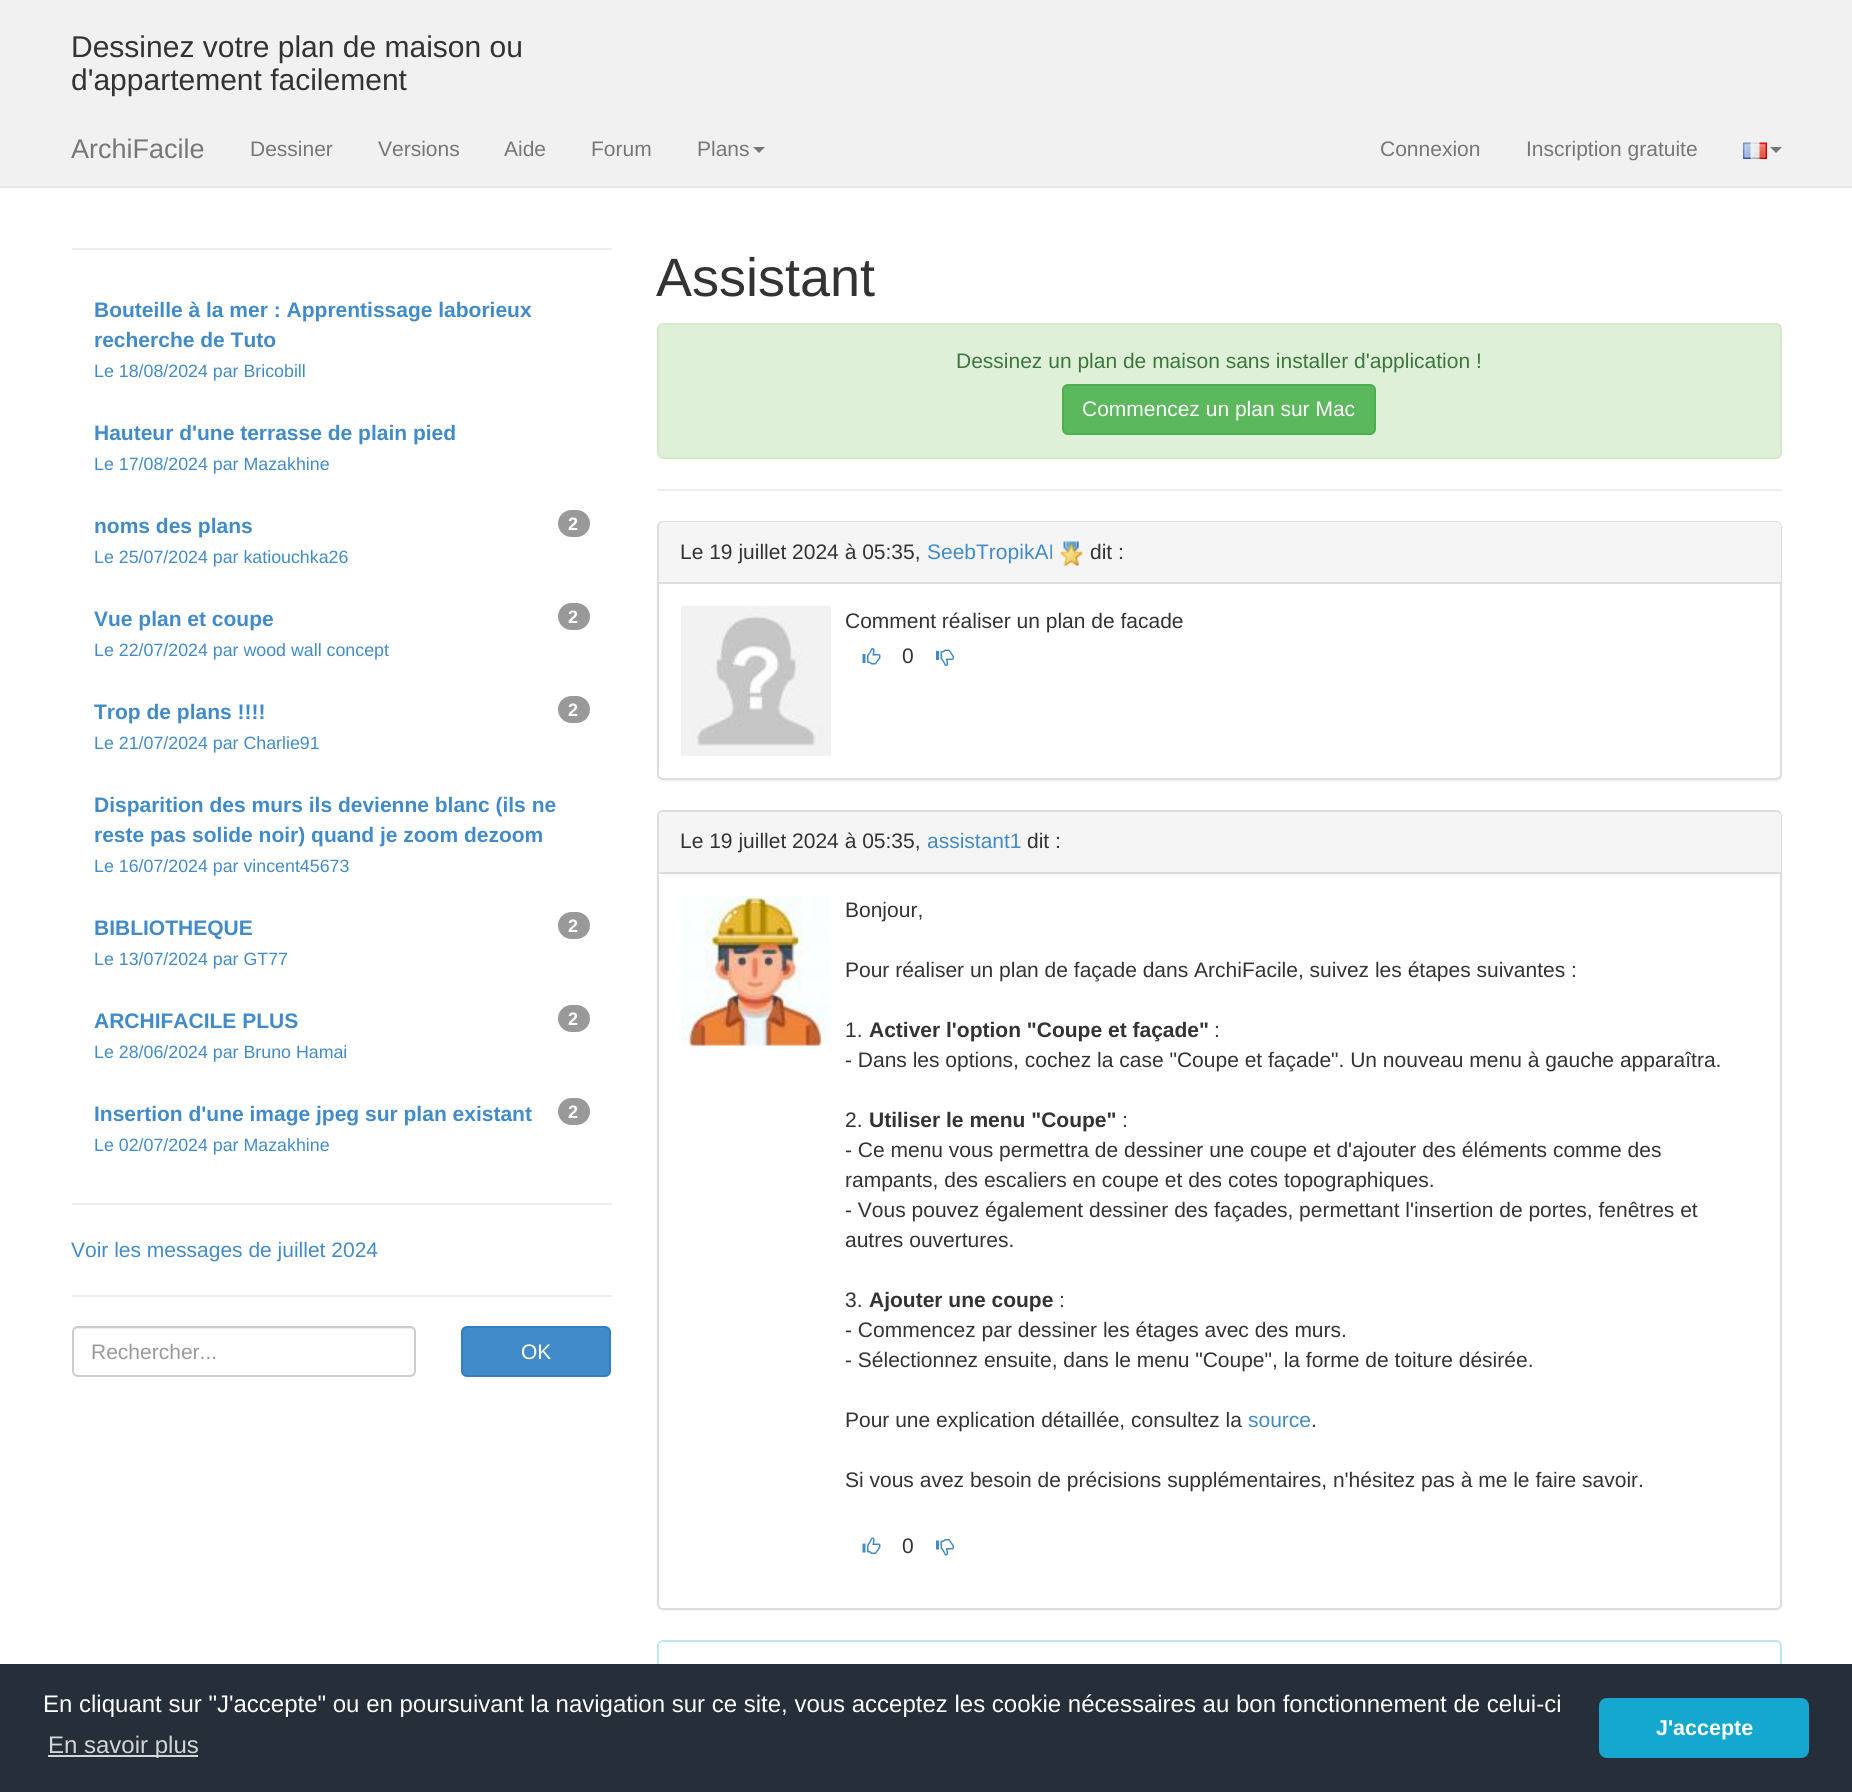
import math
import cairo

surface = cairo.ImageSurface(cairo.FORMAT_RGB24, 1852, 1792)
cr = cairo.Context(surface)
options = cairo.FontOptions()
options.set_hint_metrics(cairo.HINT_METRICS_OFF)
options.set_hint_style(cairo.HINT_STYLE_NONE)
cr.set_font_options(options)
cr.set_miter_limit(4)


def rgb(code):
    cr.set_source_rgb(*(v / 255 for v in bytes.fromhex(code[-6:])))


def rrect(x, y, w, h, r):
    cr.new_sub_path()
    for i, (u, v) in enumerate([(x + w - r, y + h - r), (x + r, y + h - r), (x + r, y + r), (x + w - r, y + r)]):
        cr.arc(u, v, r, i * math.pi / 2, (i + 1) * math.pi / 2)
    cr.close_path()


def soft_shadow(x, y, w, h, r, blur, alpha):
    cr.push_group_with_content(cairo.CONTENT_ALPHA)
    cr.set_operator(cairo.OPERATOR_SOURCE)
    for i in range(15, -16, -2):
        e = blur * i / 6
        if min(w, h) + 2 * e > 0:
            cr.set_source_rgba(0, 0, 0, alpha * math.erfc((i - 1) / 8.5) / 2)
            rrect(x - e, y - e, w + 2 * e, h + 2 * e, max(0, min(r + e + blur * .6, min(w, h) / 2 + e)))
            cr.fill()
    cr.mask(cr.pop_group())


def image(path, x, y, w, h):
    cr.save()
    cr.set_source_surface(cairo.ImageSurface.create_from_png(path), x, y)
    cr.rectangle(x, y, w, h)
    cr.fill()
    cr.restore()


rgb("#ffffff")
cr.paint()
rgb("#f1f1f1")
cr.rectangle(0, 0, 1852, 186)
cr.fill()
rgb("#e7e7e7")
cr.rectangle(0, 186, 1852, 2)
cr.fill()
rgb("#777777")
cr.new_path()
cr.move_to(753, 147)
cr.line_to(765, 147)
cr.line_to(759, 153)
cr.close_path()
cr.fill()
image("img/1.png", 1743, 142, 24, 17)
cr.new_path()
cr.move_to(1770, 147)
cr.line_to(1782, 147)
cr.line_to(1776, 153)
cr.close_path()
cr.fill()
rgb("#eeeeee")
cr.rectangle(72, 248, 540, 2)
cr.fill()
rgb("#999999")
rrect(558, 510, 32, 27, 13.5)
cr.fill()
rrect(558, 603, 32, 27, 13.5)
cr.fill()
rrect(558, 696, 32, 27, 13.5)
cr.fill()
rrect(558, 912, 32, 27, 13.5)
cr.fill()
rrect(558, 1005, 32, 27, 13.5)
cr.fill()
rrect(558, 1098, 32, 27, 13.5)
cr.fill()
rgb("#eeeeee")
cr.rectangle(72, 1203, 540, 2)
cr.fill()
cr.rectangle(72, 1295, 540, 2)
cr.fill()
rgb("#ececec")
cr.new_path()
cr.move_to(78, 1329)
cr.line_to(410, 1329)
cr.curve_to(412, 1329, 414, 1331, 414, 1334)
cr.curve_to(414, 1331, 412, 1328, 409, 1328)
cr.line_to(79, 1328)
cr.curve_to(76, 1328, 74, 1331, 74, 1334)
cr.curve_to(74, 1331, 76, 1329, 78, 1329)
cr.close_path()
cr.fill()
rrect(73, 1327, 342, 49, 5)
rgb("#cccccc")
cr.stroke()
rgb("#428bca")
rrect(462, 1327, 148, 49, 5)
cr.fill_preserve()
rgb("#357ebd")
cr.stroke()
rgb("#dff0d8")
rrect(658, 324, 1123, 134, 5)
cr.fill_preserve()
rgb("#d6e9c6")
cr.stroke()
rgb("#5cb85c")
rrect(1063, 385, 312, 49, 5)
cr.fill_preserve()
rgb("#4cae4c")
cr.stroke()
rgb("#eeeeee")
cr.rectangle(657, 489, 1125, 2)
cr.fill()
rgb("#000000")
soft_shadow(657, 522, 1125, 260, 6, 1, 0.05)
rgb("#ffffff")
rrect(658, 522, 1123, 257, 5)
cr.fill_preserve()
rgb("#dddddd")
cr.stroke()
rgb("#f5f5f5")
cr.new_path()
cr.move_to(664, 522)
cr.line_to(1776, 522)
cr.curve_to(1779, 522, 1781, 524, 1781, 527)
cr.line_to(1781, 584)
cr.line_to(659, 584)
cr.line_to(659, 527)
cr.curve_to(659, 524, 661, 522, 664, 522)
cr.close_path()
cr.fill()
rgb("#dddddd")
cr.rectangle(659, 582, 1122, 2)
cr.fill()
image("img/2.png", 1060, 541, 23, 25)
image("img/3.png", 681, 606, 150, 150)
image("img/4.png", 862, 648, 19, 17)
image("img/5.png", 936, 649, 18, 17)
rgb("#000000")
soft_shadow(657, 812, 1125, 799, 6, 1, 0.05)
rgb("#ffffff")
rrect(658, 811, 1123, 798, 5)
cr.fill_preserve()
rgb("#dddddd")
cr.stroke()
rgb("#f5f5f5")
cr.new_path()
cr.move_to(664, 812)
cr.line_to(1776, 812)
cr.curve_to(1779, 812, 1781, 814, 1781, 817)
cr.line_to(1781, 873)
cr.line_to(659, 873)
cr.line_to(659, 817)
cr.curve_to(659, 814, 661, 812, 664, 812)
cr.close_path()
cr.fill()
rgb("#dddddd")
cr.rectangle(659, 872, 1122, 2)
cr.fill()
image("img/6.png", 681, 895, 150, 151)
image("img/7.png", 862, 1537, 19, 17)
image("img/8.png", 936, 1539, 18, 17)
rrect(658, 1641, 1123, 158, 5)
rgb("#bce8f1")
cr.stroke()
rgb("#252e39")
cr.rectangle(0, 1664, 1852, 128)
cr.fill()
rgb("#d3d5d7")
cr.rectangle(48, 1755, 150, 2)
cr.fill()
rgb("#14a7d0")
rrect(1599, 1698, 210, 60, 8)
cr.fill()
cr.select_font_face("Liberation Sans")
cr.set_font_size(30)
rgb("#333333")
cr.move_to(71, 57)
cr.show_text("Dessinez votre plan de maison ou")
cr.move_to(71, 90)
cr.show_text("d'appartement facilement")
cr.set_font_size(27)
rgb("#777777")
cr.move_to(71, 158)
cr.show_text("ArchiFacile")
cr.set_font_size(21)
for x, y, s in [
    (250, 156, "Dessiner"),
    (378, 156, "Versions"),
    (504, 156, "Aide"),
    (591, 156, "Forum"),
    (697, 156, "Plans"),
    (1380, 156, "Connexion"),
    (1526, 156, "Inscription gratuite"),
]:
    cr.move_to(x, y)
    cr.show_text(s)
cr.select_font_face("Liberation Sans", cairo.FONT_SLANT_NORMAL, cairo.FONT_WEIGHT_BOLD)
rgb("#428bca")
cr.move_to(94, 317)
cr.show_text("Bouteille à la mer : Apprentissage laborieux")
cr.move_to(94, 347)
cr.show_text("recherche de Tuto")
cr.select_font_face("Liberation Sans")
cr.set_font_size(17.8)
cr.move_to(94, 377)
cr.show_text("Le 18/08/2024 par Bricobill")
cr.select_font_face("Liberation Sans", cairo.FONT_SLANT_NORMAL, cairo.FONT_WEIGHT_BOLD)
cr.set_font_size(21)
cr.move_to(94, 440)
cr.show_text("Hauteur d'une terrasse de plain pied")
cr.select_font_face("Liberation Sans")
cr.set_font_size(17.8)
cr.move_to(94, 470)
cr.show_text("Le 17/08/2024 par Mazakhine")
cr.select_font_face("Liberation Sans", cairo.FONT_SLANT_NORMAL, cairo.FONT_WEIGHT_BOLD)
cr.set_font_size(21)
cr.move_to(94, 533)
cr.show_text("noms des plans")
cr.set_font_size(18)
rgb("#ffffff")
cr.move_to(568, 530)
cr.show_text("2")
cr.select_font_face("Liberation Sans")
cr.set_font_size(17.8)
rgb("#428bca")
cr.move_to(94, 563)
cr.show_text("Le 25/07/2024 par katiouchka26")
cr.select_font_face("Liberation Sans", cairo.FONT_SLANT_NORMAL, cairo.FONT_WEIGHT_BOLD)
cr.set_font_size(21)
cr.move_to(94, 626)
cr.show_text("Vue plan et coupe")
cr.set_font_size(18)
rgb("#ffffff")
cr.move_to(568, 623)
cr.show_text("2")
cr.select_font_face("Liberation Sans")
cr.set_font_size(17.8)
rgb("#428bca")
cr.move_to(94, 656)
cr.show_text("Le 22/07/2024 par wood wall concept")
cr.select_font_face("Liberation Sans", cairo.FONT_SLANT_NORMAL, cairo.FONT_WEIGHT_BOLD)
cr.set_font_size(21)
cr.move_to(94, 719)
cr.show_text("Trop de plans !!!!")
cr.set_font_size(18)
rgb("#ffffff")
cr.move_to(568, 716)
cr.show_text("2")
cr.select_font_face("Liberation Sans")
cr.set_font_size(17.8)
rgb("#428bca")
cr.move_to(94, 749)
cr.show_text("Le 21/07/2024 par Charlie91")
cr.select_font_face("Liberation Sans", cairo.FONT_SLANT_NORMAL, cairo.FONT_WEIGHT_BOLD)
cr.set_font_size(21)
cr.move_to(94, 812)
cr.show_text("Disparition des murs ils devienne blanc (ils ne")
cr.move_to(94, 842)
cr.show_text("reste pas solide noir) quand je zoom dezoom")
cr.select_font_face("Liberation Sans")
cr.set_font_size(17.8)
cr.move_to(94, 872)
cr.show_text("Le 16/07/2024 par vincent45673")
cr.select_font_face("Liberation Sans", cairo.FONT_SLANT_NORMAL, cairo.FONT_WEIGHT_BOLD)
cr.set_font_size(21)
cr.move_to(94, 935)
cr.show_text("BIBLIOTHEQUE")
cr.set_font_size(18)
rgb("#ffffff")
cr.move_to(568, 932)
cr.show_text("2")
cr.select_font_face("Liberation Sans")
cr.set_font_size(17.8)
rgb("#428bca")
cr.move_to(94, 965)
cr.show_text("Le 13/07/2024 par GT77")
cr.select_font_face("Liberation Sans", cairo.FONT_SLANT_NORMAL, cairo.FONT_WEIGHT_BOLD)
cr.set_font_size(21)
cr.move_to(94, 1028)
cr.show_text("ARCHIFACILE PLUS")
cr.set_font_size(18)
rgb("#ffffff")
cr.move_to(568, 1025)
cr.show_text("2")
cr.select_font_face("Liberation Sans")
cr.set_font_size(17.8)
rgb("#428bca")
cr.move_to(94, 1058)
cr.show_text("Le 28/06/2024 par Bruno Hamai")
cr.select_font_face("Liberation Sans", cairo.FONT_SLANT_NORMAL, cairo.FONT_WEIGHT_BOLD)
cr.set_font_size(21)
cr.move_to(94, 1121)
cr.show_text("Insertion d'une image jpeg sur plan existant")
cr.set_font_size(18)
rgb("#ffffff")
cr.move_to(568, 1118)
cr.show_text("2")
cr.select_font_face("Liberation Sans")
cr.set_font_size(17.8)
rgb("#428bca")
cr.move_to(94, 1151)
cr.show_text("Le 02/07/2024 par Mazakhine")
cr.set_font_size(21)
cr.move_to(71, 1257)
cr.show_text("Voir les messages de juillet 2024")
rgb("#999999")
cr.move_to(91, 1359)
cr.show_text("Rechercher...")
rgb("#ffffff")
cr.move_to(521, 1359)
cr.show_text("OK")
cr.set_font_size(54)
rgb("#333333")
cr.move_to(656, 296)
cr.show_text("Assistant")
cr.set_font_size(21)
rgb("#3c763d")
cr.move_to(956, 368)
cr.show_text("Dessinez un plan de maison sans installer d'application !")
rgb("#ffffff")
cr.move_to(1082, 416)
cr.show_text("Commencez un plan sur Mac")
rgb("#333333")
cr.move_to(680, 559)
cr.show_text("Le 19 juillet 2024 à 05:35,")
rgb("#428bca")
cr.move_to(927, 559)
cr.show_text("SeebTropikAI")
rgb("#333333")
for x, y, s in [
    (1090, 559, "dit :"),
    (845, 628, "Comment réaliser un plan de facade"),
    (902, 663, "0"),
    (680, 848, "Le 19 juillet 2024 à 05:35,"),
]:
    cr.move_to(x, y)
    cr.show_text(s)
rgb("#428bca")
cr.move_to(927, 848)
cr.show_text("assistant1")
rgb("#333333")
for x, y, s in [
    (1027, 848, "dit :"),
    (845, 917, "Bonjour,"),
    (845, 977, "Pour réaliser un plan de façade dans ArchiFacile, suivez les étapes suivantes :"),
    (845, 1037, "1."),
]:
    cr.move_to(x, y)
    cr.show_text(s)
cr.select_font_face("Liberation Sans", cairo.FONT_SLANT_NORMAL, cairo.FONT_WEIGHT_BOLD)
cr.move_to(869, 1037)
cr.show_text("Activer l'option \"Coupe et façade\"")
cr.select_font_face("Liberation Sans")
for x, y, s in [
    (1214, 1037, ":"),
    (845, 1067, "- Dans les options, cochez la case \"Coupe et façade\". Un nouveau menu à gauche apparaîtra."),
    (845, 1127, "2."),
]:
    cr.move_to(x, y)
    cr.show_text(s)
cr.select_font_face("Liberation Sans", cairo.FONT_SLANT_NORMAL, cairo.FONT_WEIGHT_BOLD)
cr.move_to(869, 1127)
cr.show_text("Utiliser le menu \"Coupe\"")
cr.select_font_face("Liberation Sans")
for x, y, s in [
    (1122, 1127, ":"),
    (845, 1157, "- Ce menu vous permettra de dessiner une coupe et d'ajouter des éléments comme des"),
    (845, 1187, "rampants, des escaliers en coupe et des cotes topographiques."),
    (845, 1217, "- Vous pouvez également dessiner des façades, permettant l'insertion de portes, fenêtres et"),
    (845, 1247, "autres ouvertures."),
    (845, 1307, "3."),
]:
    cr.move_to(x, y)
    cr.show_text(s)
cr.select_font_face("Liberation Sans", cairo.FONT_SLANT_NORMAL, cairo.FONT_WEIGHT_BOLD)
cr.move_to(869, 1307)
cr.show_text("Ajouter une coupe")
cr.select_font_face("Liberation Sans")
for x, y, s in [
    (1059, 1307, ":"),
    (845, 1337, "- Commencez par dessiner les étages avec des murs."),
    (845, 1367, "- Sélectionnez ensuite, dans le menu \"Coupe\", la forme de toiture désirée."),
    (845, 1427, "Pour une explication détaillée, consultez la"),
]:
    cr.move_to(x, y)
    cr.show_text(s)
rgb("#428bca")
cr.move_to(1248, 1427)
cr.show_text("source")
rgb("#333333")
for x, y, s in [
    (1311, 1427, "."),
    (845, 1487, "Si vous avez besoin de précisions supplémentaires, n'hésitez pas à me le faire savoir."),
    (902, 1553, "0"),
]:
    cr.move_to(x, y)
    cr.show_text(s)
cr.set_font_size(24)
rgb("#ffffff")
cr.move_to(43, 1712)
cr.show_text("En cliquant sur \"J'accepte\" ou en poursuivant la navigation sur ce site, vous acceptez les cookie nécessaires au bon fonctionnement de celui-ci")
rgb("#d3d5d7")
cr.move_to(48, 1753)
cr.show_text("En savoir plus")
cr.select_font_face("Liberation Sans", cairo.FONT_SLANT_NORMAL, cairo.FONT_WEIGHT_BOLD)
cr.set_font_size(21.5)
rgb("#ffffff")
cr.move_to(1656, 1735)
cr.show_text("J'accepte")
surface.write_to_png("page.png")
